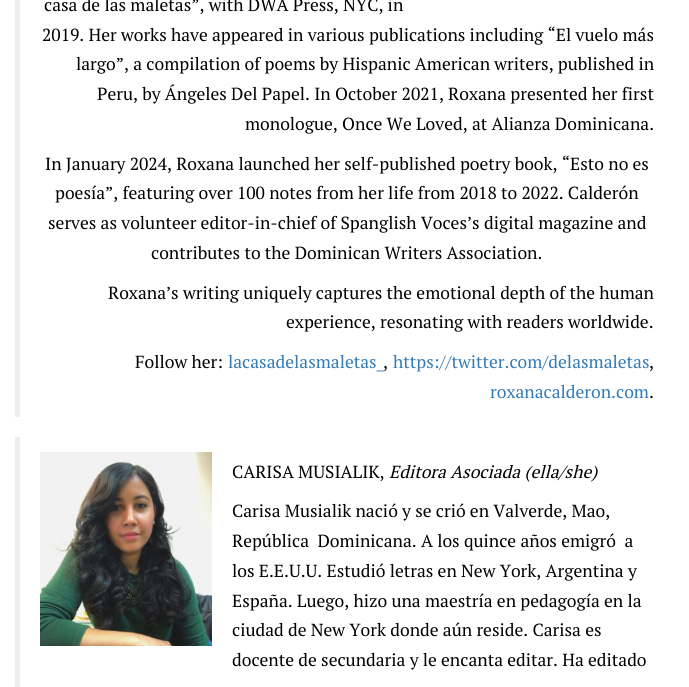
import math
import cairo

surface = cairo.ImageSurface(cairo.FORMAT_RGB24, 689, 687)
cr = cairo.Context(surface)
options = cairo.FontOptions()
options.set_hint_metrics(cairo.HINT_METRICS_OFF)
options.set_hint_style(cairo.HINT_STYLE_NONE)
cr.set_font_options(options)
cr.set_miter_limit(4)


def rgb(code):
    cr.set_source_rgb(*(v / 255 for v in bytes.fromhex(code[-6:])))


def image(path, x, y, w, h):
    cr.save()
    cr.set_source_surface(cairo.ImageSurface.create_from_png(path), x, y)
    cr.rectangle(x, y, w, h)
    cr.fill()
    cr.restore()


rgb("#ffffff")
cr.paint()
rgb("#eeeeee")
cr.rectangle(15, 0, 5, 417)
cr.fill()
cr.rectangle(15, 437, 5, 250)
cr.fill()
image("img/1.png", 40, 452, 172, 194)
cr.select_font_face("PT Serif")
cr.set_font_size(17.5)
rgb("#000000")
for x, y, s in [
    (44, 11, "casa de las maletas”, with DWA Press, NYC, in"),
    (42, 41, "2019. Her works have appeared in various publications including “El vuelo más"),
    (76, 70, "largo”, a compilation of poems by Hispanic American writers, published in"),
    (97, 100, "Peru, by Ángeles Del Papel. In October 2021, Roxana presented her first"),
    (245, 130, "monologue, Once We Loved, at Alianza Dominicana."),
    (45, 170, "In January 2024, Roxana launched her self-published poetry book, “Esto no es"),
    (55, 199, "poesía”, featuring over 100 notes from her life from 2018 to 2022. Calderón"),
    (48, 229, "serves as volunteer editor-in-chief of Spanglish Voces’s digital magazine and"),
    (151, 259, "contributes to the Dominican Writers Association."),
    (108, 299, "Roxana’s writing uniquely captures the emotional depth of the human"),
    (286, 328, "experience, resonating with readers worldwide."),
    (135, 368, "Follow her:"),
]:
    cr.move_to(x, y)
    cr.show_text(s)
rgb("#337ab7")
cr.move_to(228, 368)
cr.show_text("lacasadelasmaletas_")
rgb("#000000")
cr.move_to(383, 368)
cr.show_text(",")
rgb("#337ab7")
cr.move_to(393, 368)
cr.show_text("https://twitter.com/delasmaletas")
rgb("#000000")
cr.move_to(649, 368)
cr.show_text(",")
rgb("#337ab7")
cr.move_to(490, 398)
cr.show_text("roxanacalderon.com")
rgb("#000000")
cr.move_to(649, 398)
cr.show_text(".")
cr.move_to(232, 478)
cr.show_text("CARISA MUSIALIK,")
cr.select_font_face("PT Serif", cairo.FONT_SLANT_ITALIC)
cr.move_to(389, 478)
cr.show_text("Editora Asociada (ella/she)")
cr.select_font_face("PT Serif")
for x, y, s in [
    (232, 517, "Carisa Musialik nació y se crió en Valverde, Mao,"),
    (232, 547, "República  Dominicana. A los quince años emigró  a"),
    (232, 577, "los E.E.U.U. Estudió letras en New York, Argentina y"),
    (232, 607, "España. Luego, hizo una maestría en pedagogía en la"),
    (232, 636, "ciudad de New York donde aún reside. Carisa es"),
    (232, 666, "docente de secundaria y le encanta editar. Ha editado"),
]:
    cr.move_to(x, y)
    cr.show_text(s)
surface.write_to_png("page.png")
